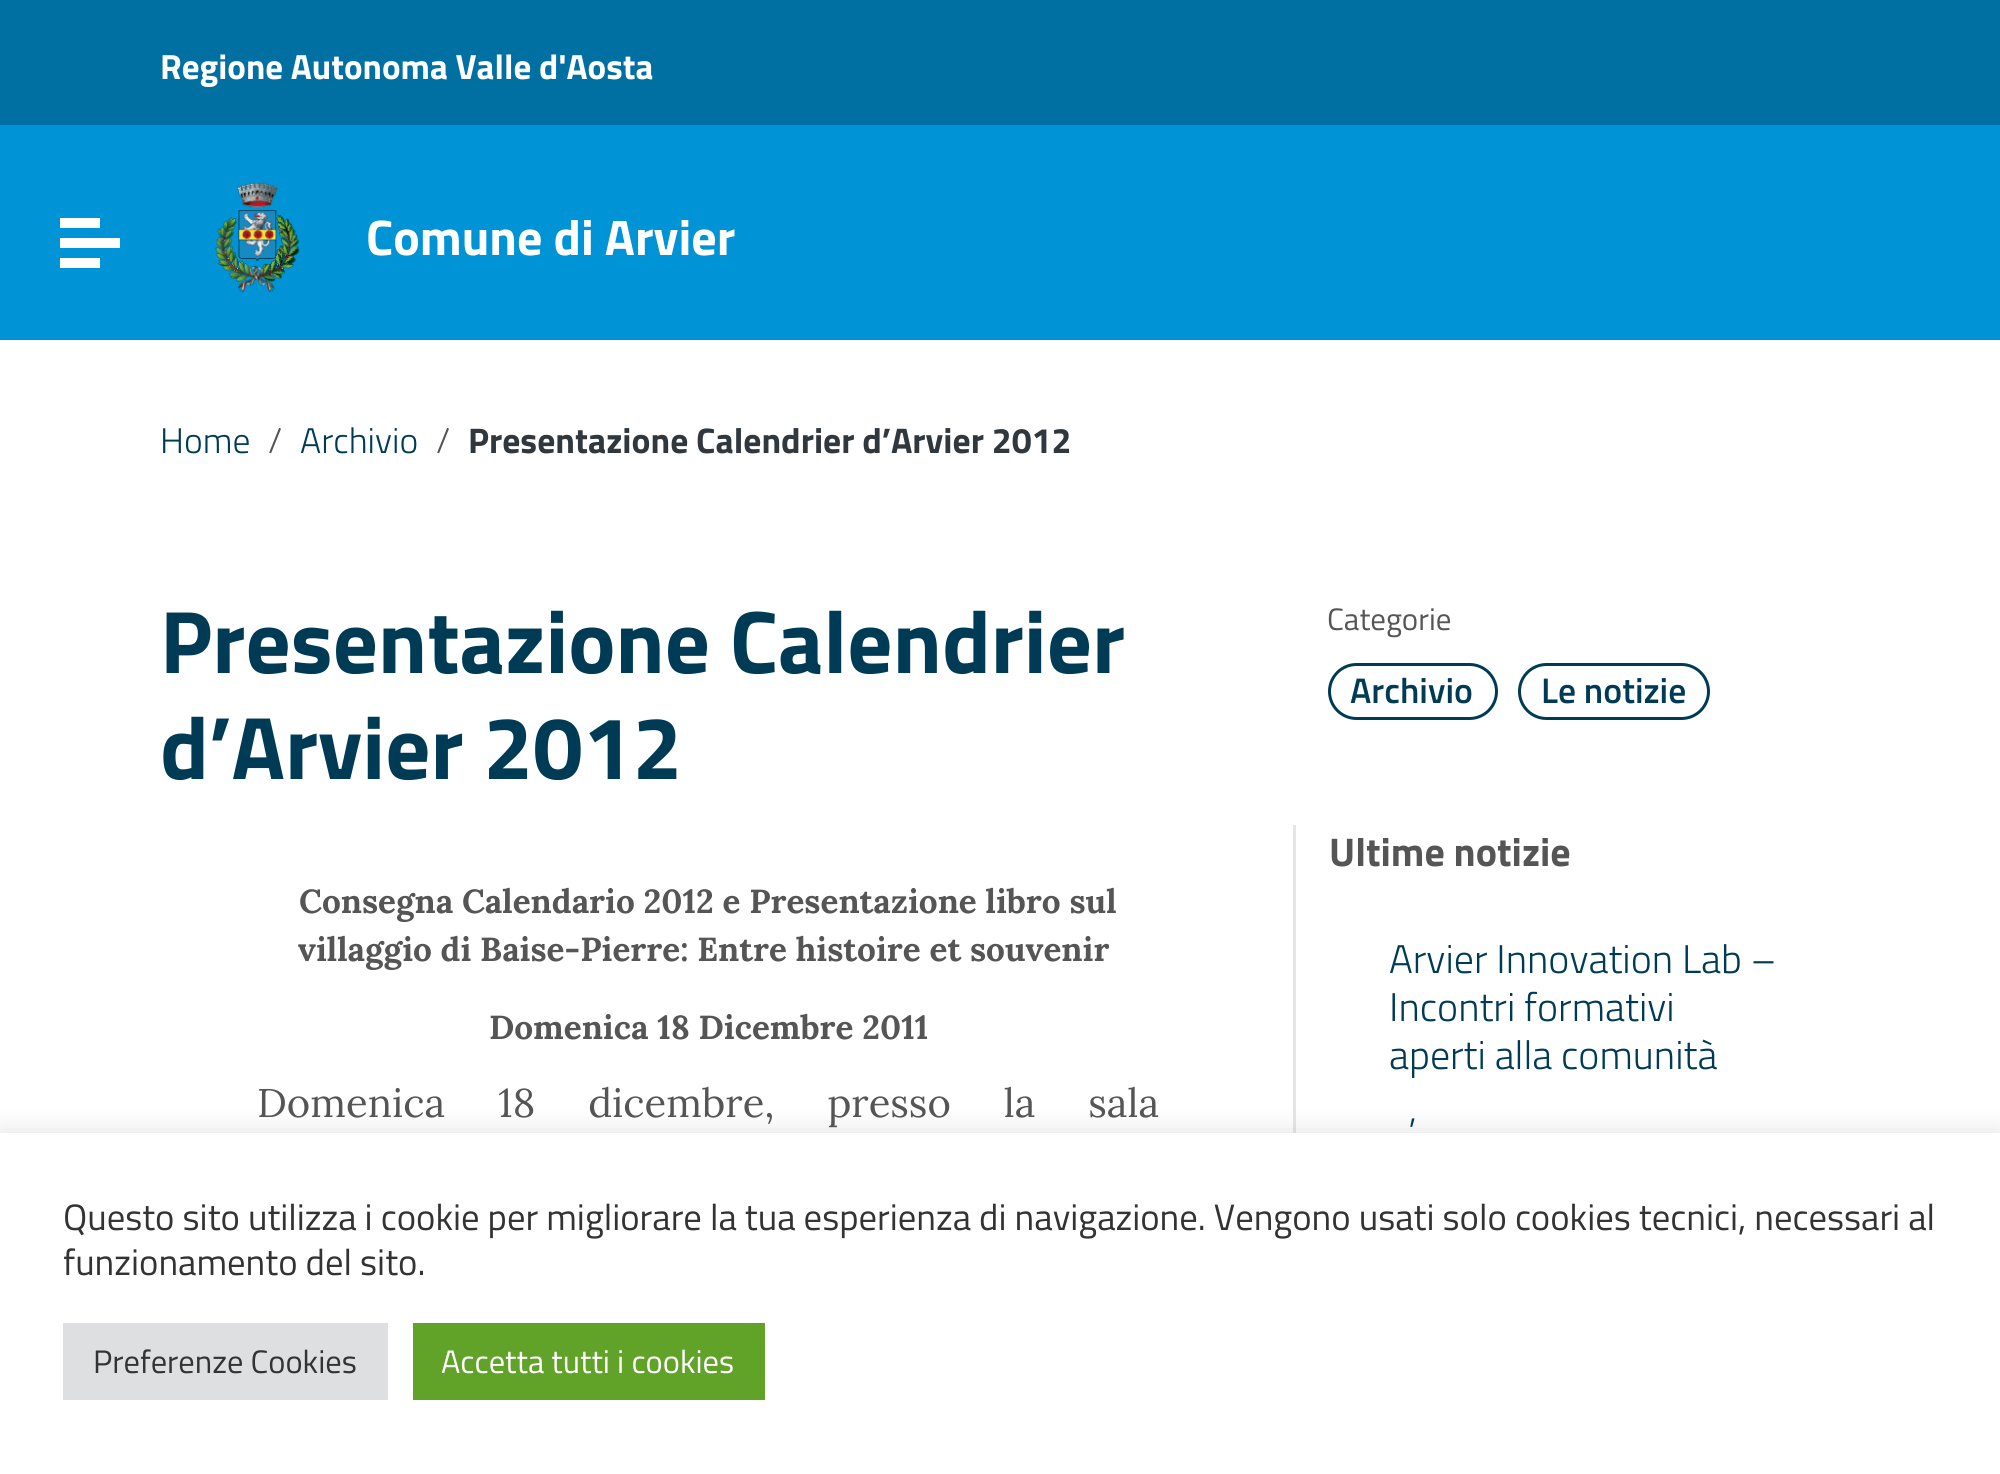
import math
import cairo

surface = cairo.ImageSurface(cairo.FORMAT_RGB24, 2000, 1474)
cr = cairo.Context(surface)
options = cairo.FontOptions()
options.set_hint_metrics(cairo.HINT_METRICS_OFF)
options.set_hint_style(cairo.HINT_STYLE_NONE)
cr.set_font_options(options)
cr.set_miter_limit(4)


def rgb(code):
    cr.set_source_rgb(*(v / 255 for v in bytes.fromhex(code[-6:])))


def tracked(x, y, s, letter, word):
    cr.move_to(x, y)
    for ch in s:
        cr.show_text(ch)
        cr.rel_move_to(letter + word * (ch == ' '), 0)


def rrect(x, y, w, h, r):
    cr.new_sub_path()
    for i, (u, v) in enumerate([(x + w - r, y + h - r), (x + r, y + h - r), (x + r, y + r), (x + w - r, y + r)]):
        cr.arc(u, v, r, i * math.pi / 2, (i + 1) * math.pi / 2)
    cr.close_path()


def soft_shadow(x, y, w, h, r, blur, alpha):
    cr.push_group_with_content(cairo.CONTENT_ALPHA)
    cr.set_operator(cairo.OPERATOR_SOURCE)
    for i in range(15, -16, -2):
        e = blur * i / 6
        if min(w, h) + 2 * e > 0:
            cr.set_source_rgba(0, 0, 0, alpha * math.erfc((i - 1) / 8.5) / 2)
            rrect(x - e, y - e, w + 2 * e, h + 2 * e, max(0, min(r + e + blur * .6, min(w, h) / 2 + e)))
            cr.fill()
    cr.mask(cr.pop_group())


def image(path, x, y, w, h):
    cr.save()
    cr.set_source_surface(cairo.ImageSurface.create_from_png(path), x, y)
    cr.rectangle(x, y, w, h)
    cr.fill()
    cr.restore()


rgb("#ffffff")
cr.paint()
for x, y, w, h, color in [
    (0, 125, 2000, 215, "#0093d5"),
    (0, 0, 2000, 125, "#0070a2"),
    (60, 218, 40, 10, "#ffffff"),
    (60, 238, 60, 10, "#ffffff"),
    (60, 258, 40, 10, "#ffffff"),
]:
    rgb(color)
    cr.rectangle(x, y, w, h)
    cr.fill()
image("img/1.png", 215, 182, 85, 111)
rrect(1329.5, 664.5, 167, 54, 27)
rgb("#003b56")
cr.set_line_width(3)
cr.stroke()
rrect(1519.5, 664.5, 189, 54, 27)
cr.stroke()
rgb("#e5e5e5")
cr.rectangle(1293, 825, 3, 308)
cr.fill()
rgb("#acabab")
soft_shadow(0, 1130, 2000, 343, 0, 12.5, 0.3)
for x, y, w, h, color in [
    (0, 1133, 2000, 341, "#ffffff"),
    (63, 1323, 325, 77, "#dedfe0"),
    (413, 1323, 352, 77, "#61a229"),
]:
    rgb(color)
    cr.rectangle(x, y, w, h)
    cr.fill()
cr.select_font_face("Titillium Web", cairo.FONT_SLANT_NORMAL, cairo.FONT_WEIGHT_BOLD)
cr.set_font_size(35)
rgb("#ffffff")
cr.move_to(160, 79)
cr.show_text("Regione Autonoma Valle d'Aosta")
cr.set_font_size(50)
cr.move_to(366, 255)
cr.show_text("Comune di Arvier")
cr.select_font_face("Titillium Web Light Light")
cr.set_font_size(35.6)
rgb("#003b56")
cr.move_to(160, 453)
cr.show_text("Home")
rgb("#555555")
cr.move_to(268, 453)
cr.show_text("/")
rgb("#003b56")
cr.move_to(300, 453)
cr.show_text("Archivio")
rgb("#555555")
cr.move_to(436, 453)
cr.show_text("/")
cr.select_font_face("Titillium Web", cairo.FONT_SLANT_NORMAL, cairo.FONT_WEIGHT_BOLD)
rgb("#30373d")
cr.move_to(468, 453)
cr.show_text("Presentazione Calendrier d’Arvier 2012")
cr.set_font_size(88.9)
rgb("#003b56")
cr.move_to(160, 673)
cr.show_text("Presentazione Calendrier")
cr.move_to(160, 779)
cr.show_text("d’Arvier 2012")
cr.select_font_face("Titillium Web")
cr.set_font_size(31)
rgb("#555555")
cr.move_to(1327, 630)
cr.show_text("Categorie")
cr.select_font_face("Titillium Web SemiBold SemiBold")
cr.set_font_size(35.6)
rgb("#003b56")
cr.move_to(1350, 703)
cr.show_text("Archivio")
cr.move_to(1541, 703)
cr.show_text("Le notizie")
cr.select_font_face("Lora", cairo.FONT_SLANT_NORMAL, cairo.FONT_WEIGHT_BOLD)
cr.set_font_size(33.3)
rgb("#555555")
for x, y, s in [
    (299, 913, "Consegna Calendario 2012 e Presentazione libro sul"),
    (298, 961, "villaggio di Baise-Pierre: Entre histoire et souvenir"),
    (489, 1039, "Domenica 18 Dicembre 2011"),
]:
    cr.move_to(x, y)
    cr.show_text(s)
cr.select_font_face("Lora")
cr.set_font_size(40)
tracked(257, 1117, "Domenica 18 dicembre, presso la sala", 0, 42.5)
cr.select_font_face("Titillium Web", cairo.FONT_SLANT_NORMAL, cairo.FONT_WEIGHT_BOLD)
cr.move_to(1329, 866)
cr.show_text("Ultime notizie")
cr.select_font_face("Titillium Web Light Light")
rgb("#003b56")
for x, y, s in [
    (1389, 973, "Arvier Innovation Lab –"),
    (1389, 1021, "Incontri formativi"),
    (1389, 1069, "aperti alla comunità"),
    (1408, 1147, "’"),
]:
    cr.move_to(x, y)
    cr.show_text(s)
cr.select_font_face("Titillium Web")
cr.set_font_size(36.67)
rgb("#333333")
cr.move_to(63, 1230)
cr.show_text("Questo sito utilizza i cookie per migliorare la tua esperienza di navigazione. Vengono usati solo cookies tecnici, necessari al")
cr.move_to(63, 1275)
cr.show_text("funzionamento del sito.")
cr.set_font_size(32.5)
cr.move_to(93, 1373)
cr.show_text("Preferenze Cookies")
rgb("#ffffff")
cr.move_to(441, 1373)
cr.show_text("Accetta tutti i cookies")
surface.write_to_png("page.png")
